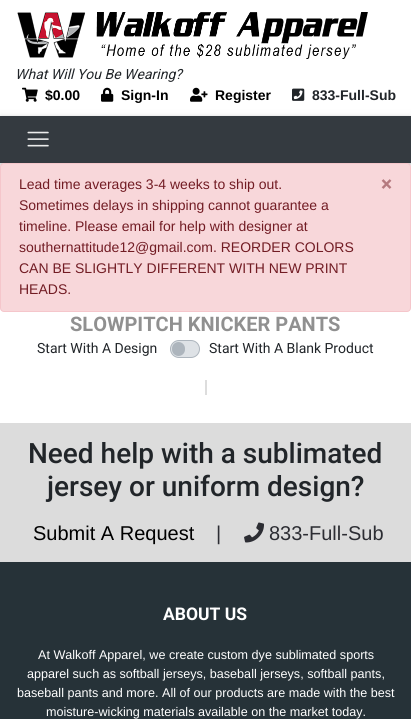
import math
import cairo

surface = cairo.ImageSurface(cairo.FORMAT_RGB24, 411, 719)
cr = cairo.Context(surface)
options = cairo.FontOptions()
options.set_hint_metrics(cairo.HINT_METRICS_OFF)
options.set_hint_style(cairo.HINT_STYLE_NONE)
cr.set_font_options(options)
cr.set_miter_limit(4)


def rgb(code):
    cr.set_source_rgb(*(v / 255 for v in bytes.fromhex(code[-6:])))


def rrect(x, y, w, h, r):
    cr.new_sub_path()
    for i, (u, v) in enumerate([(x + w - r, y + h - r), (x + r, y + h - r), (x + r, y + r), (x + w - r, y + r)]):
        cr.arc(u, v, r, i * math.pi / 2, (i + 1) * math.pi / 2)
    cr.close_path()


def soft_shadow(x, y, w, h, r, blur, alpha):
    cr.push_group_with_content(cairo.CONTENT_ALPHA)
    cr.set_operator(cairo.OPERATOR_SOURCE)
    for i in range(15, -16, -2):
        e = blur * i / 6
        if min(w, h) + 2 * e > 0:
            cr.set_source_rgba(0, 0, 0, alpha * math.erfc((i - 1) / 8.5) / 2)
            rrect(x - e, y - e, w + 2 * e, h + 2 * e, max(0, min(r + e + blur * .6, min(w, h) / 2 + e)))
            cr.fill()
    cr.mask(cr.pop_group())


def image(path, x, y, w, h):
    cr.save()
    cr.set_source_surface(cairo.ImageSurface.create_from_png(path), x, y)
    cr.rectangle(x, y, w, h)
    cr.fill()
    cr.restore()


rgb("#ffffff")
cr.paint()
image("img/1.png", 17, 12, 351, 47)
image("img/2.png", 22, 87, 16, 15)
image("img/3.png", 101, 87, 13, 15)
image("img/4.png", 190, 87, 18, 15)
image("img/5.png", 292, 88, 13, 13)
rgb("#000000")
soft_shadow(0, 118, 411, 47, 0, 5, 0.12)
soft_shadow(0, 118, 411, 47, 0, 2.5, 0.16)
rgb("#343a40")
cr.rectangle(0, 116, 411, 47)
cr.fill()
image("img/6.png", 27, 131, 22, 16)
rgb("#f8d7da")
rrect(0.5, 163.5, 410, 148, 3.5)
cr.fill_preserve()
rgb("#f5c6cb")
cr.set_line_width(1)
cr.stroke()
rgb("#dee2e6")
rrect(170.5, 340.5, 29, 17, 8.5)
cr.fill_preserve()
rgb("#adb5bd")
cr.stroke()
rrect(172, 342, 13, 14, 6.5)
cr.fill()
for x, y, w, h, color in [
    (206, 380, 1, 15, "#dddddd"),
    (205, 394, 2, 1, "#dddddd"),
    (205, 380, 1, 15, "#dddddd"),
    (0, 423, 411, 139, "#dcdcdc"),
]:
    rgb(color)
    cr.rectangle(x, y, w, h)
    cr.fill()
image("img/7.png", 244, 522, 20, 21)
rgb("#263238")
cr.rectangle(0, 562, 411, 157)
cr.fill()
cr.select_font_face("Roboto", cairo.FONT_SLANT_ITALIC)
cr.set_font_size(14)
rgb("#212529")
cr.move_to(15, 79)
cr.show_text("What Will You Be Wearing?")
cr.select_font_face("Liberation Sans", cairo.FONT_SLANT_NORMAL, cairo.FONT_WEIGHT_BOLD)
rgb("#000000")
for x, y, s in [
    (45, 100, "$0.00"),
    (121, 100, "Sign-In"),
    (215, 100, "Register"),
]:
    cr.move_to(x, y)
    cr.show_text(s)
rgb("#212529")
cr.move_to(312, 100)
cr.show_text("833-Full-Sub")
cr.select_font_face("Liberation Sans")
rgb("#721c24")
cr.move_to(19, 189)
cr.show_text("Lead time averages 3-4 weeks to ship out.")
cr.select_font_face("Roboto", cairo.FONT_SLANT_NORMAL, cairo.FONT_WEIGHT_BOLD)
cr.set_font_size(21)
rgb("#b57a7f")
cr.move_to(381, 191)
cr.show_text("×")
cr.select_font_face("Liberation Sans")
cr.set_font_size(14)
rgb("#721c24")
for x, y, s in [
    (19, 210, "Sometimes delays in shipping cannot guarantee a"),
    (19, 231, "timeline. Please email for help with designer at"),
    (19, 252, "southernattitude12@gmail.com. REORDER COLORS"),
    (19, 273, "CAN BE SLIGHTLY DIFFERENT WITH NEW PRINT"),
    (19, 294, "HEADS."),
]:
    cr.move_to(x, y)
    cr.show_text(s)
cr.select_font_face("Roboto", cairo.FONT_SLANT_NORMAL, cairo.FONT_WEIGHT_BOLD)
cr.set_font_size(20)
rgb("#909090")
cr.move_to(70, 331)
cr.show_text("SLOWPITCH KNICKER PANTS")
cr.select_font_face("Roboto")
cr.set_font_size(14)
rgb("#212529")
cr.move_to(37, 353)
cr.show_text("Start With A Design")
cr.move_to(209, 353)
cr.show_text("Start With A Blank Product")
cr.select_font_face("Roboto Medium")
cr.set_font_size(28)
cr.move_to(28, 463)
cr.show_text("Need help with a sublimated")
cr.move_to(47, 496)
cr.show_text("jersey or uniform design?")
cr.select_font_face("Liberation Sans")
cr.set_font_size(20)
rgb("#000000")
cr.move_to(33, 540)
cr.show_text("Submit A Request")
rgb("#2c2d33")
cr.move_to(216, 540)
cr.show_text("|")
cr.move_to(269, 540)
cr.show_text("833-Full-Sub")
cr.select_font_face("Roboto", cairo.FONT_SLANT_NORMAL, cairo.FONT_WEIGHT_BOLD)
cr.set_font_size(17.5)
rgb("#ffffff")
cr.move_to(163, 620)
cr.show_text("ABOUT US")
cr.select_font_face("Liberation Sans")
cr.set_font_size(12.6)
for x, y, s in [
    (38, 659, "At Walkoff Apparel, we create custom dye sublimated sports"),
    (27, 678, "apparel such as softball jerseys, baseball jerseys, softball pants,"),
    (17, 697, "baseball pants and more. All of our products are made with the best"),
    (46, 716, "moisture-wicking materials available on the market today."),
]:
    cr.move_to(x, y)
    cr.show_text(s)
surface.write_to_png("page.png")
